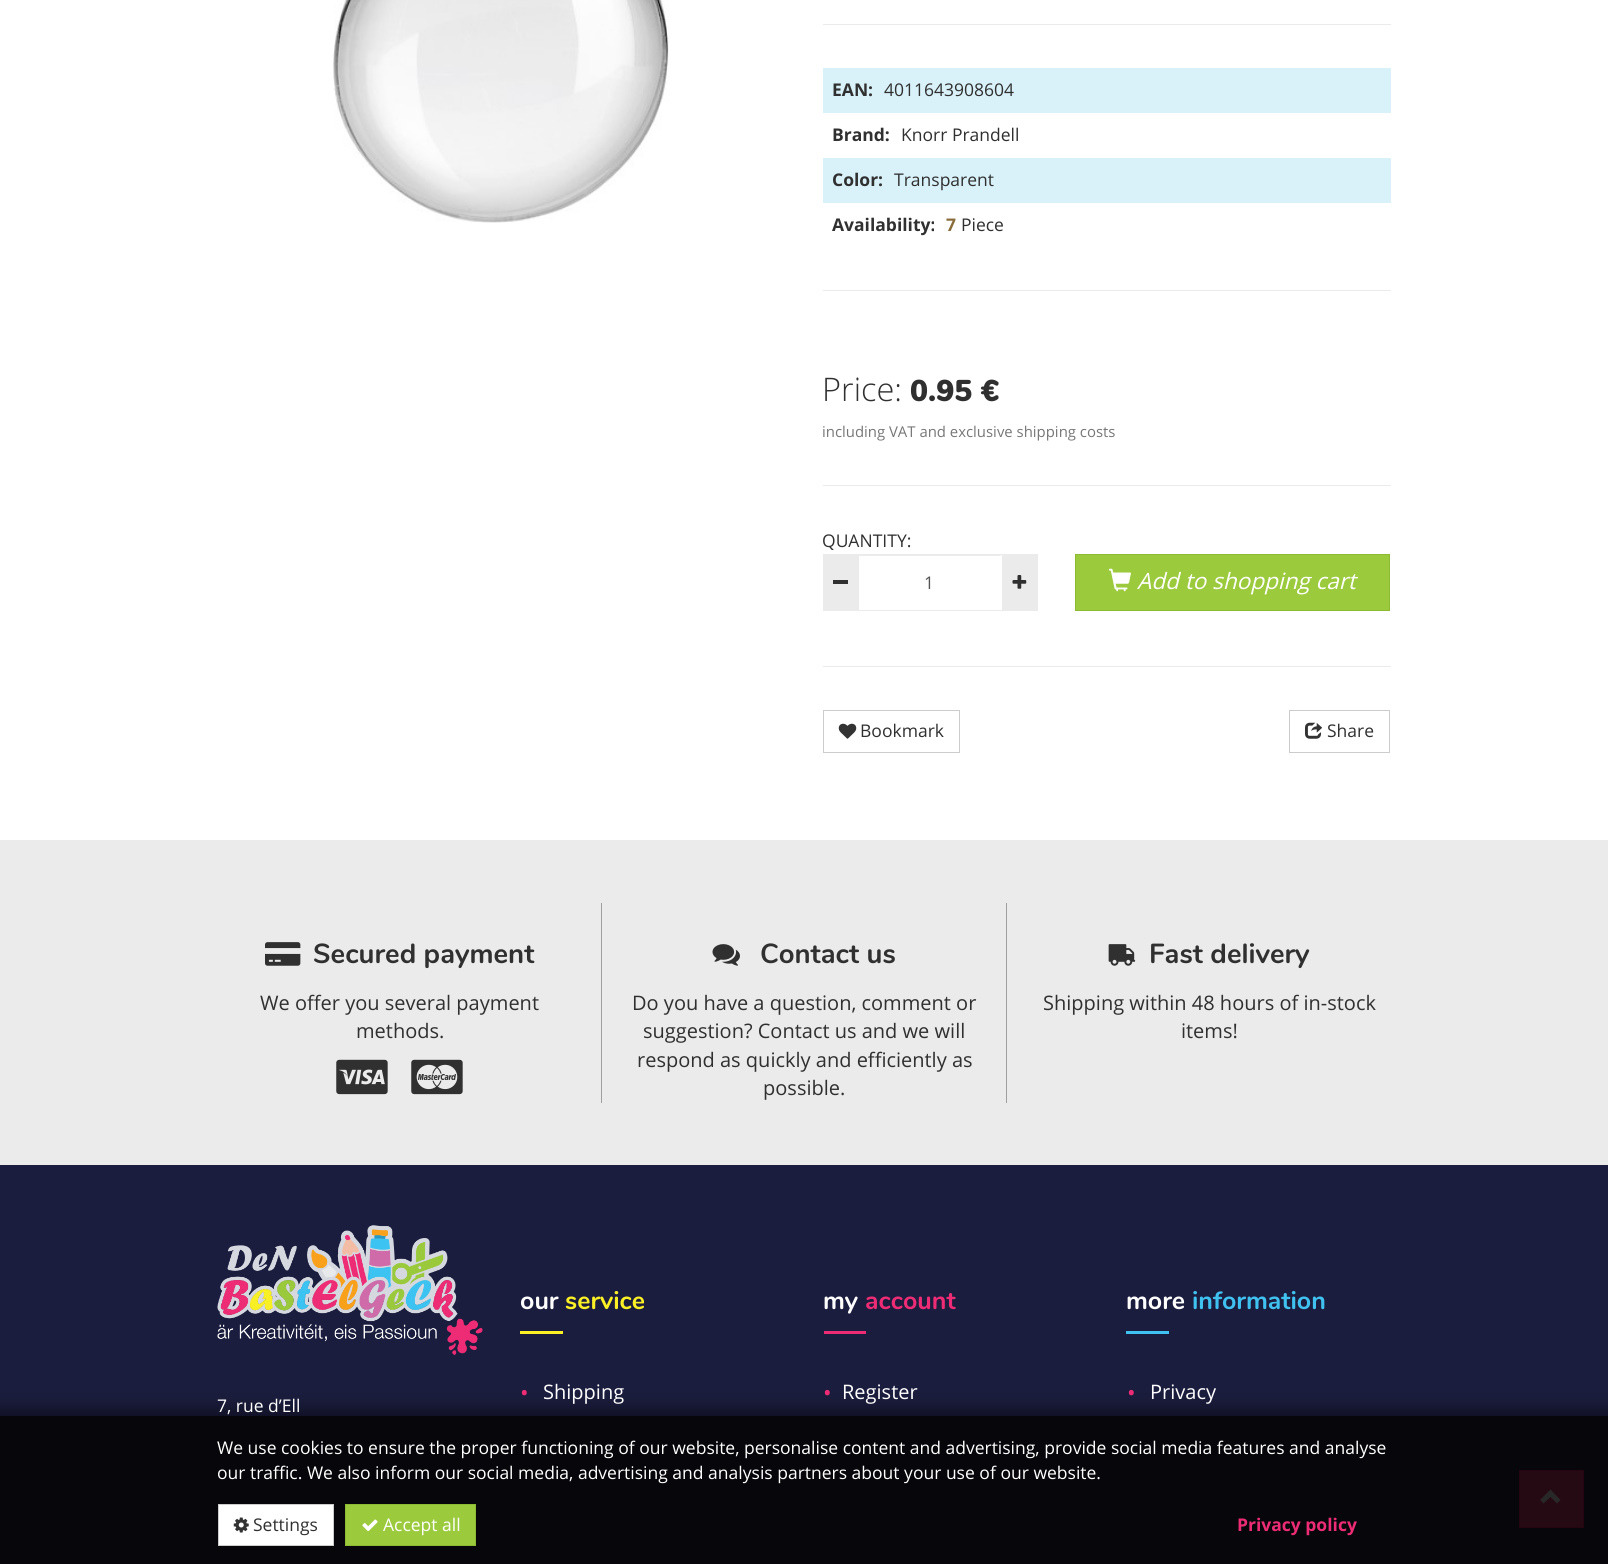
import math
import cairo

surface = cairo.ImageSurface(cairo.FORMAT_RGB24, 1608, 1564)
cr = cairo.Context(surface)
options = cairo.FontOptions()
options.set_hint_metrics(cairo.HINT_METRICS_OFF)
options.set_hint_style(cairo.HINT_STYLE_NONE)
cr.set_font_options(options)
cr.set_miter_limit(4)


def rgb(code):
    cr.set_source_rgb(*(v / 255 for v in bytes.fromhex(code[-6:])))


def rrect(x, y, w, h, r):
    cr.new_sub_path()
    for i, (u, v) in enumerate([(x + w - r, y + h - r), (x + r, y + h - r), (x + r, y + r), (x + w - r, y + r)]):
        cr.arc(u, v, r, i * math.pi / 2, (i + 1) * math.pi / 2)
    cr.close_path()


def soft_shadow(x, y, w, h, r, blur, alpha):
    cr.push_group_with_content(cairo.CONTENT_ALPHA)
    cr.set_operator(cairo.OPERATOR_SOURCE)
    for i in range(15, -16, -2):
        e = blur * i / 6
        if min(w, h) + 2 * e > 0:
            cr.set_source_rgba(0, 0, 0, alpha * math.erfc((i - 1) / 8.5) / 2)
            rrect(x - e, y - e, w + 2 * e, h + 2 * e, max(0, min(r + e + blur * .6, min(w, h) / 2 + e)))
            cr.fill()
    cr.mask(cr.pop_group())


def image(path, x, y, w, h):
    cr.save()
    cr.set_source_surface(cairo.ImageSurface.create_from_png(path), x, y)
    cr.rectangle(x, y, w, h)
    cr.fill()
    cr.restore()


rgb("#ffffff")
cr.paint()
image("img/1.png", 333, 0, 336, 223)
for x, y, w, h, color in [
    (823, 24, 568, 1, "#ebebeb"),
    (823, 68, 568, 45, "#d9f1f9"),
    (823, 158, 568, 45, "#d9f1f9"),
    (823, 290, 568, 1, "#ebebeb"),
    (823, 485, 568, 1, "#ebebeb"),
    (823, 554, 35, 57, "#ebebeb"),
    (833, 580, 15, 4, "#303030"),
    (859, 555, 142, 1, "#ececec"),
]:
    rgb(color)
    cr.rectangle(x, y, w, h)
    cr.fill()
cr.rectangle(858.5, 554.5, 144, 56)
rgb("#ebebeb")
cr.set_line_width(1)
cr.stroke()
cr.rectangle(1003, 554, 35, 57)
cr.fill()
image("img/2.png", 1012, 575, 15, 14)
rgb("#9bca3c")
cr.rectangle(1075.5, 554.5, 314, 56)
cr.fill_preserve()
rgb("#8dba33")
cr.stroke()
image("img/3.png", 1108, 568, 23, 24)
rgb("#ebebeb")
cr.rectangle(823, 666, 568, 1)
cr.fill()
cr.rectangle(823.5, 710.5, 136, 42)
rgb("#cccccc")
cr.stroke()
image("img/4.png", 838, 723, 19, 16)
cr.rectangle(1289.5, 710.5, 100, 42)
cr.stroke()
image("img/5.png", 1305, 722, 17, 17)
rgb("#ebebeb")
cr.rectangle(0, 840, 1608, 325)
cr.fill()
rgb("#9f9f9f")
cr.rectangle(601, 903, 1, 200)
cr.fill()
image("img/6.png", 265, 942, 36, 24)
image("img/7.png", 336, 1059, 52, 36)
image("img/8.png", 411, 1059, 52, 36)
cr.rectangle(1006, 903, 1, 200)
cr.fill()
image("img/9.png", 712, 944, 28, 22)
image("img/10.png", 1108, 944, 28, 22)
for x, y, w, h, color in [
    (0, 1165, 1608, 399, "#1b1d3e"),
    (520, 1331, 43, 3, "#fbef25"),
    (824, 1331, 42, 3, "#ee2c75"),
    (1126, 1331, 43, 3, "#40c2f1"),
]:
    rgb(color)
    cr.rectangle(x, y, w, h)
    cr.fill()
image("img/11.png", 217, 1225, 266, 130)
rgb("#ee2c75")
cr.rectangle(1519.5, 1470.5, 64, 57)
cr.fill_preserve()
rgb("#ec1466")
cr.stroke()
rgb("#ffffff")
cr.new_path()
cr.move_to(1560.5, 1500)
cr.line_to(1557, 1503.5)
cr.line_to(1550.5, 1497)
cr.line_to(1543.5, 1503.5)
cr.line_to(1540, 1500)
cr.line_to(1550.5, 1489.5)
cr.close_path()
cr.fill()
cr.save()
cr.set_fill_rule(cairo.FILL_RULE_EVEN_ODD)
cr.new_path()
cr.move_to(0, 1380)
cr.line_to(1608, 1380)
cr.line_to(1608, 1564)
cr.line_to(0, 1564)
cr.close_path()
cr.move_to(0, 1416)
cr.line_to(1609, 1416)
cr.line_to(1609, 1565)
cr.line_to(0, 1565)
cr.close_path()
cr.clip()
rgb("#000000")
soft_shadow(-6, 1410, 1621, 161, 0, 9.5, 0.5)
cr.restore()
cr.set_source_rgba(0.012, 0.012, 0.012, 0.85)
cr.rectangle(0, 1416, 1608, 148)
cr.fill()
rgb("#ffffff")
cr.rectangle(218.5, 1504.5, 115, 41)
cr.fill_preserve()
rgb("#cccccc")
cr.stroke()
image("img/12.png", 233, 1517, 16, 16)
rgb("#9bca3c")
cr.rectangle(345.5, 1504.5, 130, 41)
cr.fill_preserve()
rgb("#8dba33")
cr.stroke()
image("img/13.png", 362, 1519, 16, 13)
cr.select_font_face("Open Sans", cairo.FONT_SLANT_NORMAL, cairo.FONT_WEIGHT_BOLD)
cr.set_font_size(17.5)
rgb("#303030")
cr.move_to(832, 96)
cr.show_text("EAN:")
cr.select_font_face("Open Sans")
cr.move_to(884, 96)
cr.show_text("4011643908604")
cr.select_font_face("Open Sans", cairo.FONT_SLANT_NORMAL, cairo.FONT_WEIGHT_BOLD)
cr.move_to(832, 141)
cr.show_text("Brand:")
cr.select_font_face("Open Sans")
cr.move_to(901, 141)
cr.show_text("Knorr Prandell")
cr.select_font_face("Open Sans", cairo.FONT_SLANT_NORMAL, cairo.FONT_WEIGHT_BOLD)
cr.move_to(832, 186)
cr.show_text("Color:")
cr.select_font_face("Open Sans")
cr.move_to(894, 186)
cr.show_text("Transparent")
cr.select_font_face("Open Sans", cairo.FONT_SLANT_NORMAL, cairo.FONT_WEIGHT_BOLD)
cr.move_to(832, 231)
cr.show_text("Availability:")
rgb("#8a6d3b")
cr.move_to(946, 231)
cr.show_text("7")
cr.select_font_face("Open Sans")
rgb("#303030")
cr.move_to(961, 231)
cr.show_text("Piece")
cr.select_font_face("Open Sans Light")
cr.set_font_size(32.5)
cr.move_to(822, 401)
cr.show_text("Price:")
cr.select_font_face("Nunito Black")
cr.set_font_size(30)
cr.move_to(910, 401)
cr.show_text("0.95 €")
cr.select_font_face("Open Sans")
cr.set_font_size(14.9)
rgb("#777777")
cr.move_to(822, 437)
cr.show_text("including VAT and exclusive shipping costs")
cr.set_font_size(17.5)
rgb("#303030")
cr.move_to(822, 547)
cr.show_text("QUANTITY:")
rgb("#555555")
cr.move_to(924, 589)
cr.show_text("1")
cr.select_font_face("Open Sans", cairo.FONT_SLANT_ITALIC)
cr.set_font_size(22.5)
rgb("#ffffff")
cr.move_to(1137, 589)
cr.show_text("Add to shopping cart")
cr.select_font_face("Open Sans")
cr.set_font_size(17.5)
rgb("#303030")
cr.move_to(860, 737)
cr.show_text("Bookmark")
cr.move_to(1327, 737)
cr.show_text("Share")
cr.select_font_face("Nunito", cairo.FONT_SLANT_NORMAL, cairo.FONT_WEIGHT_BOLD)
cr.set_font_size(27.5)
cr.move_to(313, 963)
cr.show_text("Secured payment")
cr.select_font_face("Open Sans")
cr.set_font_size(20)
cr.move_to(260, 1010)
cr.show_text("We offer you several payment")
cr.move_to(356, 1038)
cr.show_text("methods.")
cr.select_font_face("Nunito", cairo.FONT_SLANT_NORMAL, cairo.FONT_WEIGHT_BOLD)
cr.set_font_size(27.5)
cr.move_to(760, 963)
cr.show_text("Contact us")
cr.select_font_face("Open Sans")
cr.set_font_size(20)
for x, y, s in [
    (632, 1010, "Do you have a question, comment or"),
    (643, 1038, "suggestion? Contact us and we will"),
    (637, 1067, "respond as quickly and efficiently as"),
    (763, 1095, "possible."),
]:
    cr.move_to(x, y)
    cr.show_text(s)
cr.select_font_face("Nunito", cairo.FONT_SLANT_NORMAL, cairo.FONT_WEIGHT_BOLD)
cr.set_font_size(27.5)
cr.move_to(1149, 963)
cr.show_text("Fast delivery")
cr.select_font_face("Open Sans")
cr.set_font_size(20)
cr.move_to(1043, 1010)
cr.show_text("Shipping within 48 hours of in-stock")
cr.move_to(1181, 1038)
cr.show_text("items!")
cr.select_font_face("Nunito", cairo.FONT_SLANT_NORMAL, cairo.FONT_WEIGHT_BOLD)
cr.set_font_size(25)
rgb("#ffffff")
cr.move_to(520, 1309)
cr.show_text("our")
rgb("#fbef25")
cr.move_to(565, 1309)
cr.show_text("service")
cr.select_font_face("Open Sans", cairo.FONT_SLANT_NORMAL, cairo.FONT_WEIGHT_BOLD)
cr.set_font_size(17.5)
rgb("#ee2c75")
cr.move_to(521, 1399)
cr.show_text("•")
cr.select_font_face("Open Sans")
cr.set_font_size(20)
rgb("#ffffff")
cr.move_to(543, 1399)
cr.show_text("Shipping")
cr.select_font_face("Nunito", cairo.FONT_SLANT_NORMAL, cairo.FONT_WEIGHT_BOLD)
cr.set_font_size(25)
cr.move_to(823, 1309)
cr.show_text("my")
rgb("#ee2c75")
cr.move_to(865, 1309)
cr.show_text("account")
cr.select_font_face("Open Sans", cairo.FONT_SLANT_NORMAL, cairo.FONT_WEIGHT_BOLD)
cr.set_font_size(17.5)
cr.move_to(824, 1399)
cr.show_text("•")
cr.select_font_face("Open Sans")
cr.set_font_size(20)
rgb("#ffffff")
cr.move_to(842, 1399)
cr.show_text("Register")
cr.select_font_face("Nunito", cairo.FONT_SLANT_NORMAL, cairo.FONT_WEIGHT_BOLD)
cr.set_font_size(25)
cr.move_to(1126, 1309)
cr.show_text("more")
rgb("#40c2f1")
cr.move_to(1192, 1309)
cr.show_text("information")
cr.select_font_face("Open Sans", cairo.FONT_SLANT_NORMAL, cairo.FONT_WEIGHT_BOLD)
cr.set_font_size(17.5)
rgb("#ee2c75")
cr.move_to(1128, 1399)
cr.show_text("•")
cr.select_font_face("Open Sans")
cr.set_font_size(20)
rgb("#ffffff")
cr.move_to(1150, 1399)
cr.show_text("Privacy")
cr.set_font_size(17.5)
for x, y, s in [
    (217, 1412, "7, rue d’Ell"),
    (217, 1454, "We use cookies to ensure the proper functioning of our website, personalise content and advertising, provide social media features and analyse"),
    (217, 1479, "our traffic. We also inform our social media, advertising and analysis partners about your use of our website."),
]:
    cr.move_to(x, y)
    cr.show_text(s)
rgb("#303030")
cr.move_to(253, 1531)
cr.show_text("Settings")
rgb("#ffffff")
cr.move_to(383, 1531)
cr.show_text("Accept all")
cr.select_font_face("Open Sans", cairo.FONT_SLANT_NORMAL, cairo.FONT_WEIGHT_BOLD)
rgb("#ee2c75")
cr.move_to(1237, 1531)
cr.show_text("Privacy policy")
surface.write_to_png("page.png")
